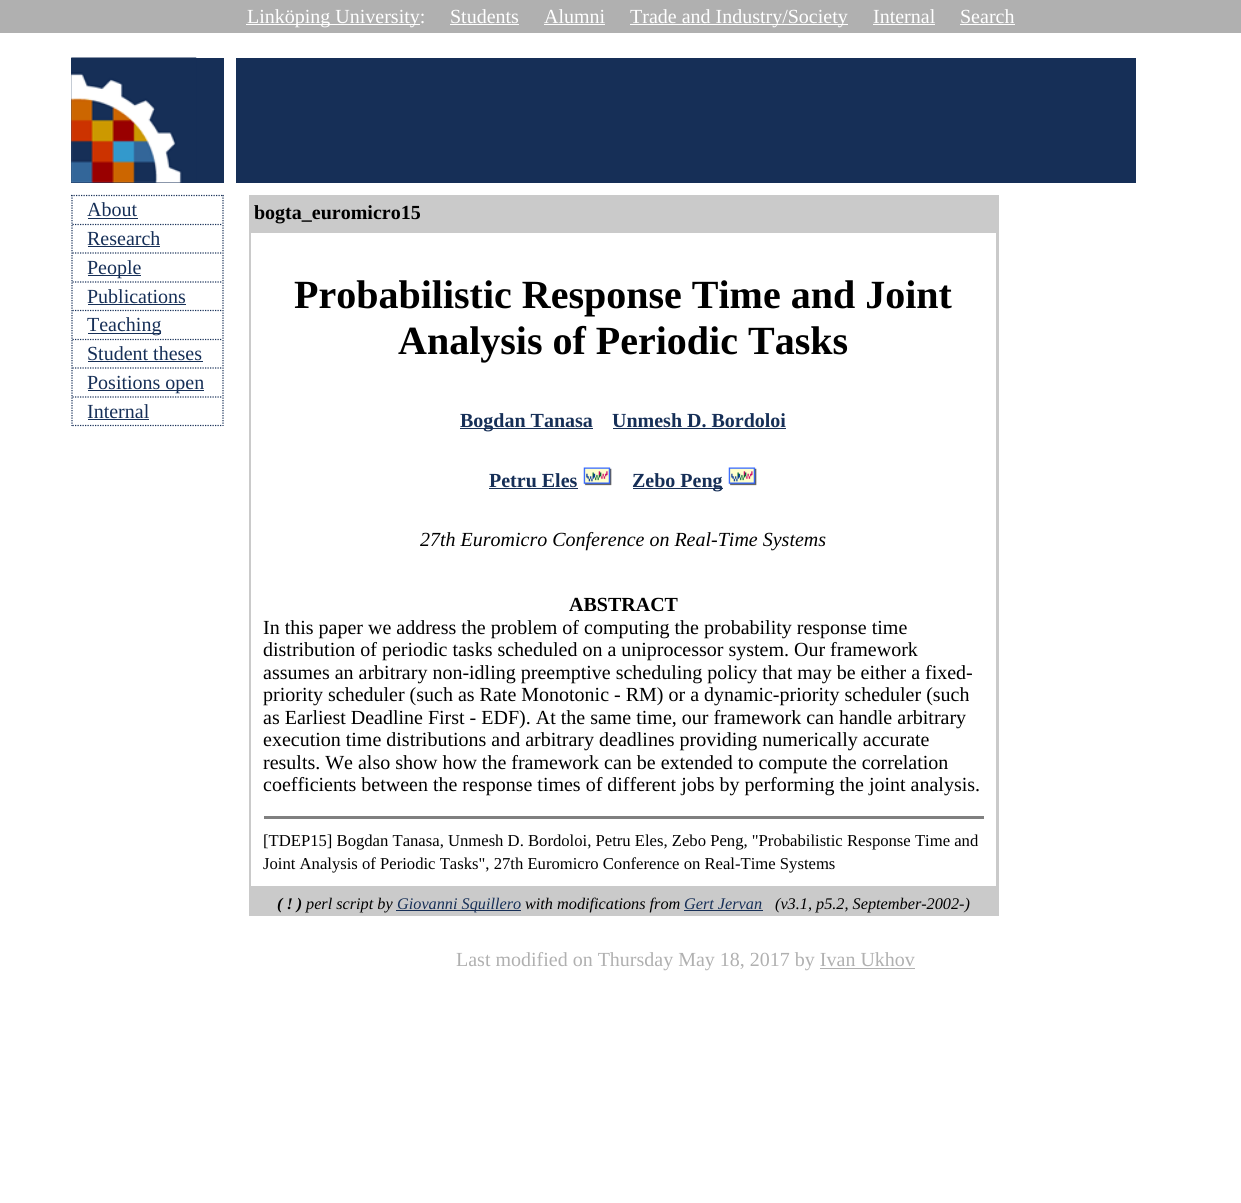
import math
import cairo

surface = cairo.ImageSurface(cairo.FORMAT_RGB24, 1241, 1203)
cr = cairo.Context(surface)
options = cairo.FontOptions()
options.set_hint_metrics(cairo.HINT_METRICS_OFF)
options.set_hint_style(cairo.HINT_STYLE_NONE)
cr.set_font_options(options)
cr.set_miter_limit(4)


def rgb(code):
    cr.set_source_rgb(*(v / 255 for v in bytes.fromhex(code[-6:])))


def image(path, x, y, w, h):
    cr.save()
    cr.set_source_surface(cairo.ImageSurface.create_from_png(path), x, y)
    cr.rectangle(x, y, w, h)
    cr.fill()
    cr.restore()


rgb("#ffffff")
cr.paint()
for x, y, w, h, color in [
    (0, 0, 1241, 33, "#b0b0b0"),
    (246, 24, 174, 1, "#ffffff"),
    (450, 24, 69, 1, "#ffffff"),
    (544, 24, 61, 1, "#ffffff"),
    (630, 24, 218, 1, "#ffffff"),
    (873, 24, 62, 1, "#ffffff"),
    (960, 24, 55, 1, "#ffffff"),
    (71, 58, 153, 125, "#162f57"),
]:
    rgb(color)
    cr.rectangle(x, y, w, h)
    cr.fill()
image("img/1.png", 71, 57, 126, 126)
cr.new_path()
cr.move_to(71, 195.5)
cr.line_to(224, 195.5)
cr.set_line_width(1.2)
cr.set_dash([1.25, 1.25])
cr.stroke()
cr.new_path()
cr.move_to(223, 195)
cr.line_to(223, 426)
cr.stroke()
cr.new_path()
cr.move_to(72, 195)
cr.line_to(72, 426)
cr.stroke()
cr.new_path()
cr.move_to(72.5, 224.5)
cr.line_to(222.5, 224.5)
cr.stroke()
cr.rectangle(88, 218, 50, 1)
cr.fill()
cr.new_path()
cr.move_to(72.5, 253)
cr.line_to(222.5, 253)
cr.stroke()
cr.rectangle(88, 246, 72, 1)
cr.fill()
cr.new_path()
cr.move_to(72.5, 282)
cr.line_to(222.5, 282)
cr.stroke()
cr.rectangle(88, 275, 53, 1)
cr.fill()
cr.new_path()
cr.move_to(72.5, 310.5)
cr.line_to(222.5, 310.5)
cr.stroke()
cr.rectangle(88, 304, 98, 1)
cr.fill()
cr.new_path()
cr.move_to(72.5, 339.5)
cr.line_to(222.5, 339.5)
cr.stroke()
cr.rectangle(88, 333, 73, 1)
cr.fill()
cr.new_path()
cr.move_to(72.5, 368)
cr.line_to(222.5, 368)
cr.stroke()
cr.rectangle(88, 361, 115, 1)
cr.fill()
cr.new_path()
cr.move_to(72.5, 397)
cr.line_to(222.5, 397)
cr.stroke()
cr.rectangle(88, 390, 116, 1)
cr.fill()
cr.new_path()
cr.move_to(72.5, 425.5)
cr.line_to(222.5, 425.5)
cr.stroke()
for x, y, w, h, color in [
    (88, 419, 61, 1, "#162f57"),
    (236, 58, 900, 125, "#162f57"),
    (249, 195, 750, 721, "#cacaca"),
    (251, 233, 745, 653, "#ffffff"),
    (460, 428, 133, 1, "#162f57"),
    (613, 428, 173, 1, "#162f57"),
    (489, 488, 89, 1, "#162f57"),
]:
    rgb(color)
    cr.rectangle(x, y, w, h)
    cr.fill()
image("img/2.png", 583, 467, 29, 19)
cr.rectangle(633, 488, 90, 1)
cr.fill()
image("img/3.png", 728, 467, 29, 19)
for x, y, w, h, color in [
    (264, 816, 720, 3, "#808080"),
    (396, 910, 125, 1, "#162f57"),
    (684, 910, 79, 1, "#162f57"),
    (820, 968, 95, 1, "#b0b0b0"),
]:
    rgb(color)
    cr.rectangle(x, y, w, h)
    cr.fill()
cr.select_font_face("Liberation Serif")
cr.set_font_size(20)
rgb("#ffffff")
for x, y, s in [
    (247, 23, "Linköping University:"),
    (450, 23, "Students"),
    (544, 23, "Alumni"),
    (630, 23, "Trade and Industry/Society"),
    (873, 23, "Internal"),
    (960, 23, "Search"),
]:
    cr.move_to(x, y)
    cr.show_text(s)
rgb("#162f57")
for x, y, s in [
    (87, 216, "About"),
    (87, 245, "Research"),
    (87, 274, "People"),
    (87, 303, "Publications"),
    (87, 331, "Teaching"),
    (87, 360, "Student theses"),
    (87, 389, "Positions open"),
    (87, 418, "Internal"),
]:
    cr.move_to(x, y)
    cr.show_text(s)
cr.select_font_face("Liberation Serif", cairo.FONT_SLANT_NORMAL, cairo.FONT_WEIGHT_BOLD)
rgb("#000000")
cr.move_to(254, 219)
cr.show_text("bogta_euromicro15")
cr.set_font_size(40)
cr.move_to(294, 308)
cr.show_text("Probabilistic Response Time and Joint")
cr.move_to(398, 354)
cr.show_text("Analysis of Periodic Tasks")
cr.set_font_size(20)
rgb("#162f57")
for x, y, s in [
    (460, 427, "Bogdan Tanasa"),
    (612, 427, "Unmesh D. Bordoloi"),
    (489, 487, "Petru Eles"),
    (632, 487, "Zebo Peng"),
]:
    cr.move_to(x, y)
    cr.show_text(s)
cr.select_font_face("Liberation Serif", cairo.FONT_SLANT_ITALIC)
rgb("#000000")
cr.move_to(420, 546)
cr.show_text("27th Euromicro Conference on Real-Time Systems")
cr.select_font_face("Liberation Serif", cairo.FONT_SLANT_NORMAL, cairo.FONT_WEIGHT_BOLD)
cr.move_to(569, 611)
cr.show_text("ABSTRACT")
cr.select_font_face("Liberation Serif")
for x, y, s in [
    (263, 634, "In this paper we address the problem of computing the probability response time"),
    (263, 656, "distribution of periodic tasks scheduled on a uniprocessor system. Our framework"),
    (263, 679, "assumes an arbitrary non-idling preemptive scheduling policy that may be either a fixed-"),
    (263, 701, "priority scheduler (such as Rate Monotonic - RM) or a dynamic-priority scheduler (such"),
    (263, 724, "as Earliest Deadline First - EDF). At the same time, our framework can handle arbitrary"),
    (263, 746, "execution time distributions and arbitrary deadlines providing numerically accurate"),
    (263, 769, "results. We also show how the framework can be extended to compute the correlation"),
    (263, 791, "coefficients between the response times of different jobs by performing the joint analysis."),
]:
    cr.move_to(x, y)
    cr.show_text(s)
cr.set_font_size(16.65)
cr.move_to(263, 846)
cr.show_text("[TDEP15] Bogdan Tanasa, Unmesh D. Bordoloi, Petru Eles, Zebo Peng, \"Probabilistic Response Time and")
cr.move_to(263, 869)
cr.show_text("Joint Analysis of Periodic Tasks\", 27th Euromicro Conference on Real-Time Systems")
cr.select_font_face("Liberation Serif", cairo.FONT_SLANT_ITALIC, cairo.FONT_WEIGHT_BOLD)
cr.set_font_size(16.25)
cr.move_to(277, 909)
cr.show_text("( ! )")
cr.select_font_face("Liberation Serif", cairo.FONT_SLANT_ITALIC)
cr.move_to(306, 909)
cr.show_text("perl script by")
rgb("#162f57")
cr.move_to(397, 909)
cr.show_text("Giovanni Squillero")
rgb("#000000")
cr.move_to(525, 909)
cr.show_text("with modifications from")
rgb("#162f57")
cr.move_to(684, 909)
cr.show_text("Gert Jervan")
rgb("#000000")
cr.move_to(775, 909)
cr.show_text("(v3.1, p5.2, September-2002-)")
cr.select_font_face("Liberation Serif")
cr.set_font_size(20)
rgb("#b0b0b0")
cr.move_to(456, 966)
cr.show_text("Last modified on Thursday May 18, 2017 by Ivan Ukhov")
surface.write_to_png("page.png")
